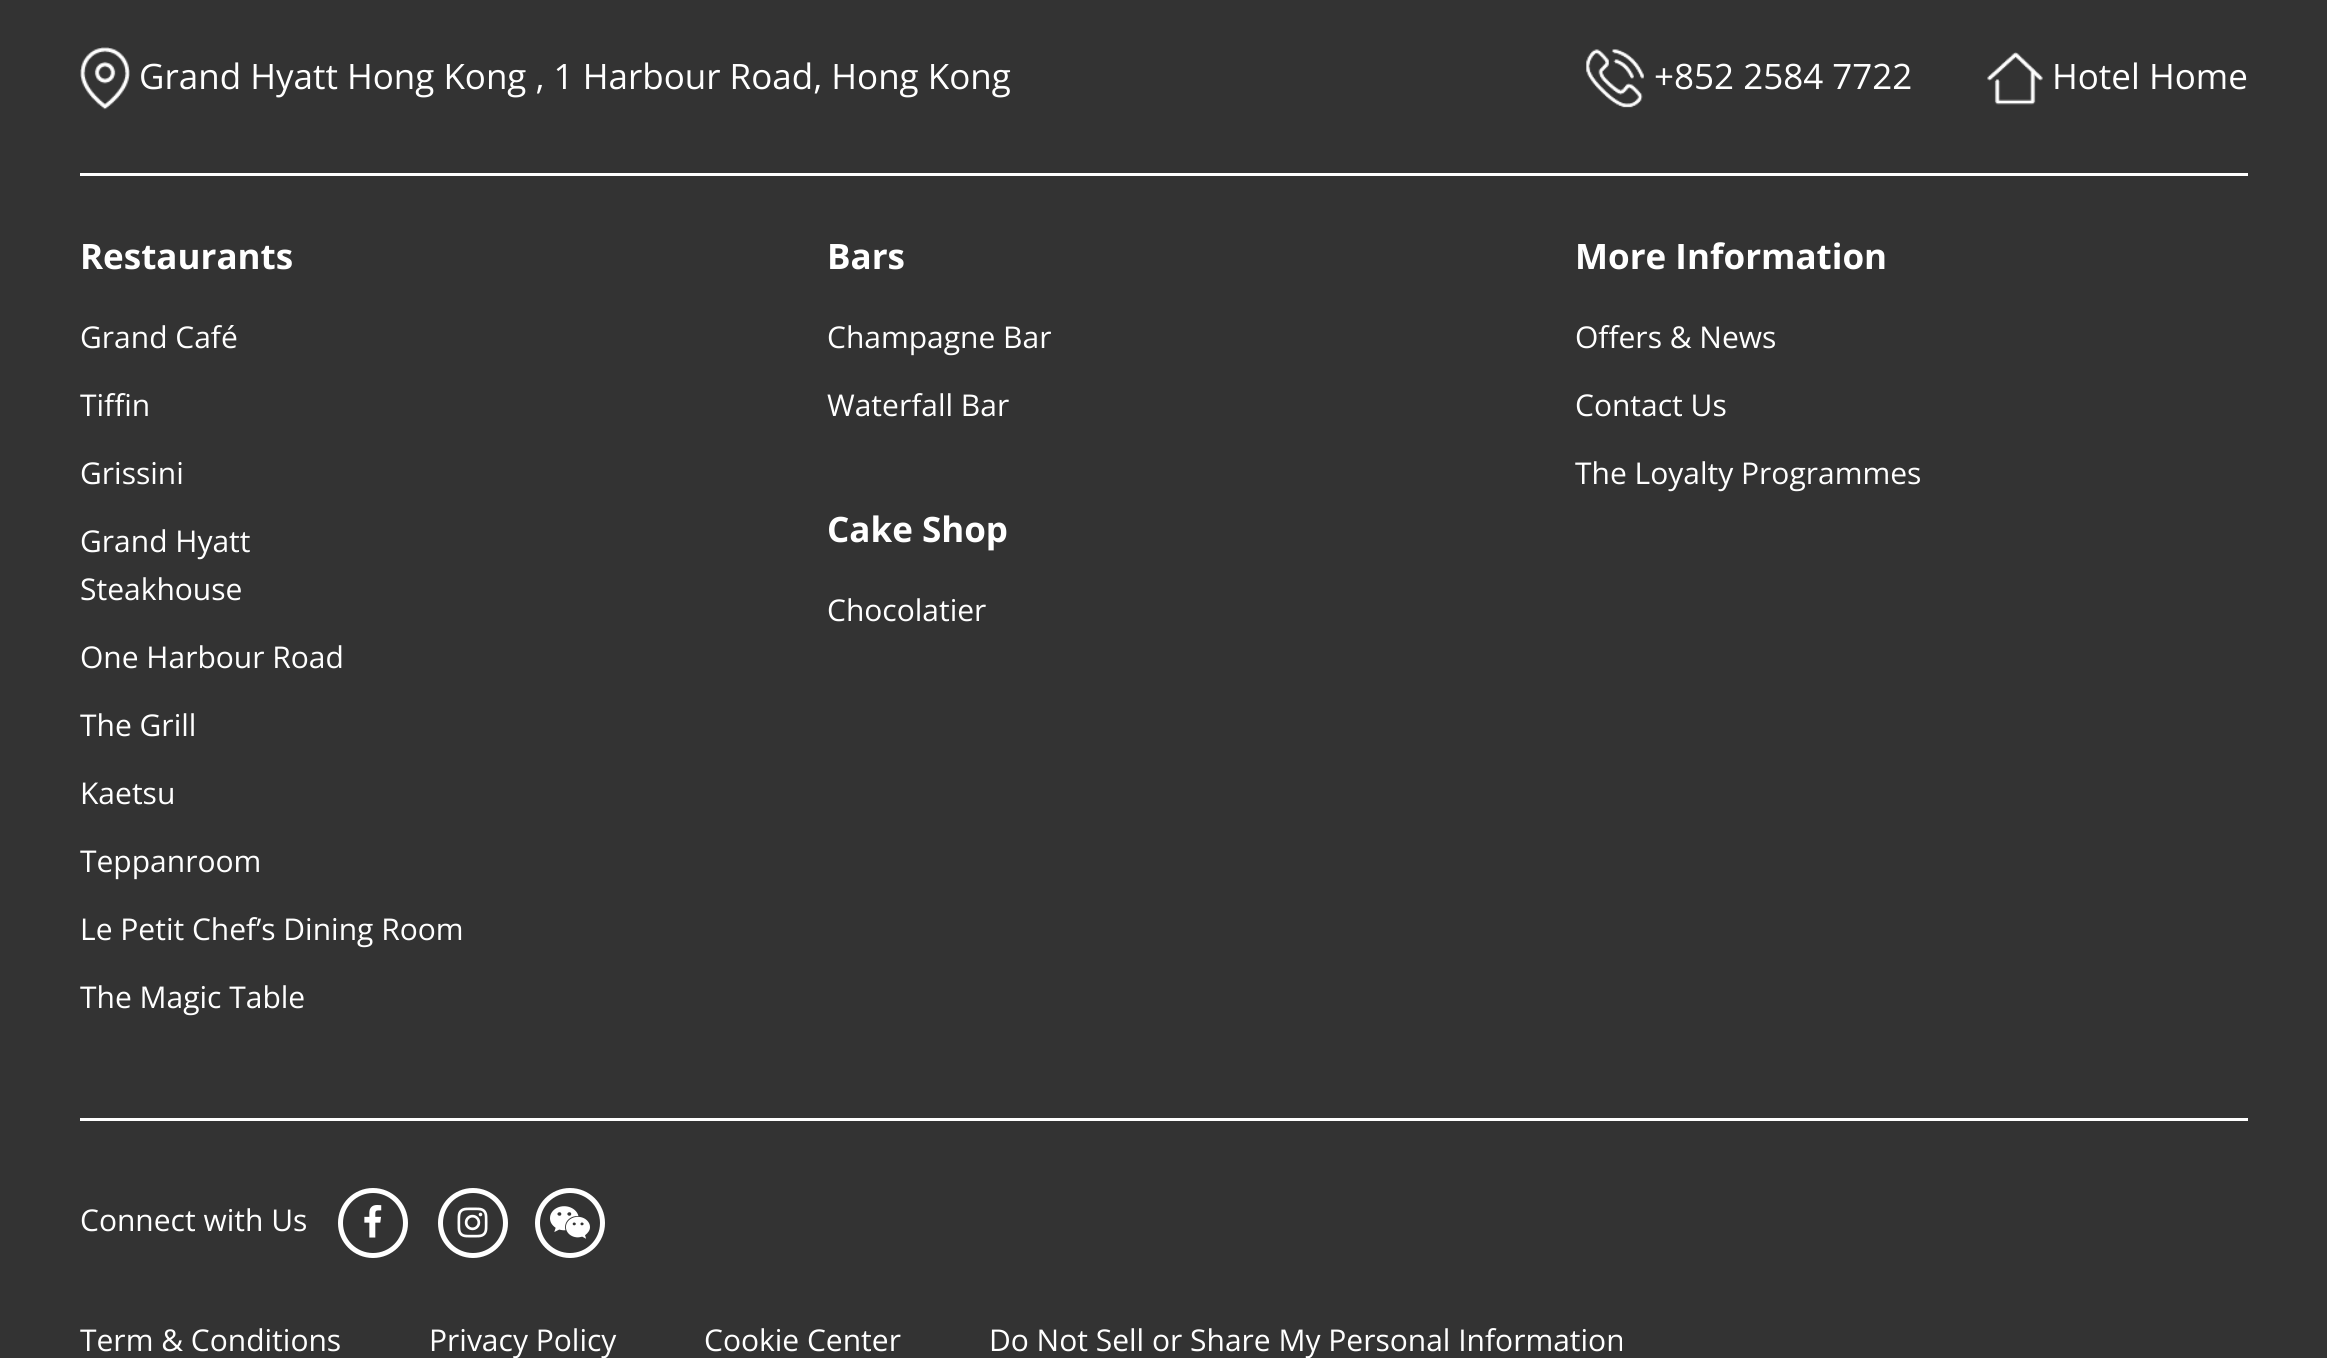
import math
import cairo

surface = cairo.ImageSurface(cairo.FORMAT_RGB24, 2327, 1358)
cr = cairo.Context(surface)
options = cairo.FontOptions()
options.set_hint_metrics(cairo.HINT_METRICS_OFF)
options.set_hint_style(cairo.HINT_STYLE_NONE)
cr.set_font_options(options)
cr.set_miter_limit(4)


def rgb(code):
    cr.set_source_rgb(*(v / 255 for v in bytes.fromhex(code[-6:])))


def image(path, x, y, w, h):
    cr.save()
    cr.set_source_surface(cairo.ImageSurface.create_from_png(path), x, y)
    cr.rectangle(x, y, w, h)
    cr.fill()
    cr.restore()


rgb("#333333")
cr.paint()
image("img/1.png", 80, 47, 50, 63)
image("img/2.png", 1586, 49, 58, 59)
image("img/3.png", 1987, 52, 56, 53)
rgb("#ffffff")
cr.rectangle(80, 173, 2168, 3)
cr.fill()
cr.rectangle(80, 1118, 2168, 3)
cr.fill()
cr.arc(373, 1223, 32.5, 0, 2 * math.pi)
cr.set_line_width(5)
cr.stroke()
image("img/4.png", 364, 1205, 18, 33)
cr.arc(473, 1223, 32.5, 0, 2 * math.pi)
cr.stroke()
image("img/5.png", 457, 1207, 31, 31)
cr.arc(570, 1223, 32.5, 0, 2 * math.pi)
cr.stroke()
image("img/6.png", 550, 1206, 40, 33)
cr.select_font_face("Open Sans")
cr.set_font_size(35)
for x, y, s in [
    (139, 89, "Grand Hyatt Hong Kong , 1 Harbour Road, Hong Kong"),
    (1654, 89, "+852 2584 7722"),
    (2052, 89, "Hotel Home"),
]:
    cr.move_to(x, y)
    cr.show_text(s)
cr.select_font_face("Open Sans", cairo.FONT_SLANT_NORMAL, cairo.FONT_WEIGHT_BOLD)
cr.move_to(80, 269)
cr.show_text("Restaurants")
cr.select_font_face("Open Sans")
cr.set_font_size(30)
for x, y, s in [
    (80, 348, "Grand Café"),
    (80, 416, "Tiffin"),
    (80, 484, "Grissini"),
    (80, 552, "Grand Hyatt"),
    (80, 600, "Steakhouse"),
    (80, 668, "One Harbour Road"),
    (80, 736, "The Grill"),
    (80, 804, "Kaetsu"),
    (80, 872, "Teppanroom"),
    (80, 940, "Le Petit Chef’s Dining Room"),
    (80, 1008, "The Magic Table"),
]:
    cr.move_to(x, y)
    cr.show_text(s)
cr.select_font_face("Open Sans", cairo.FONT_SLANT_NORMAL, cairo.FONT_WEIGHT_BOLD)
cr.set_font_size(35)
cr.move_to(827, 269)
cr.show_text("Bars")
cr.select_font_face("Open Sans")
cr.set_font_size(30)
cr.move_to(827, 348)
cr.show_text("Champagne Bar")
cr.move_to(827, 416)
cr.show_text("Waterfall Bar")
cr.select_font_face("Open Sans", cairo.FONT_SLANT_NORMAL, cairo.FONT_WEIGHT_BOLD)
cr.set_font_size(35)
cr.move_to(827, 542)
cr.show_text("Cake Shop")
cr.select_font_face("Open Sans")
cr.set_font_size(30)
cr.move_to(827, 621)
cr.show_text("Chocolatier")
cr.select_font_face("Open Sans", cairo.FONT_SLANT_NORMAL, cairo.FONT_WEIGHT_BOLD)
cr.set_font_size(35)
cr.move_to(1575, 269)
cr.show_text("More Information")
cr.select_font_face("Open Sans")
cr.set_font_size(30)
for x, y, s in [
    (1575, 348, "Offers & News"),
    (1575, 416, "Contact Us"),
    (1575, 484, "The Loyalty Programmes"),
    (80, 1231, "Connect with Us"),
    (80, 1351, "Term & Conditions"),
    (429, 1351, "Privacy Policy"),
    (704, 1351, "Cookie Center"),
    (989, 1351, "Do Not Sell or Share My Personal Information"),
]:
    cr.move_to(x, y)
    cr.show_text(s)
surface.write_to_png("page.png")
